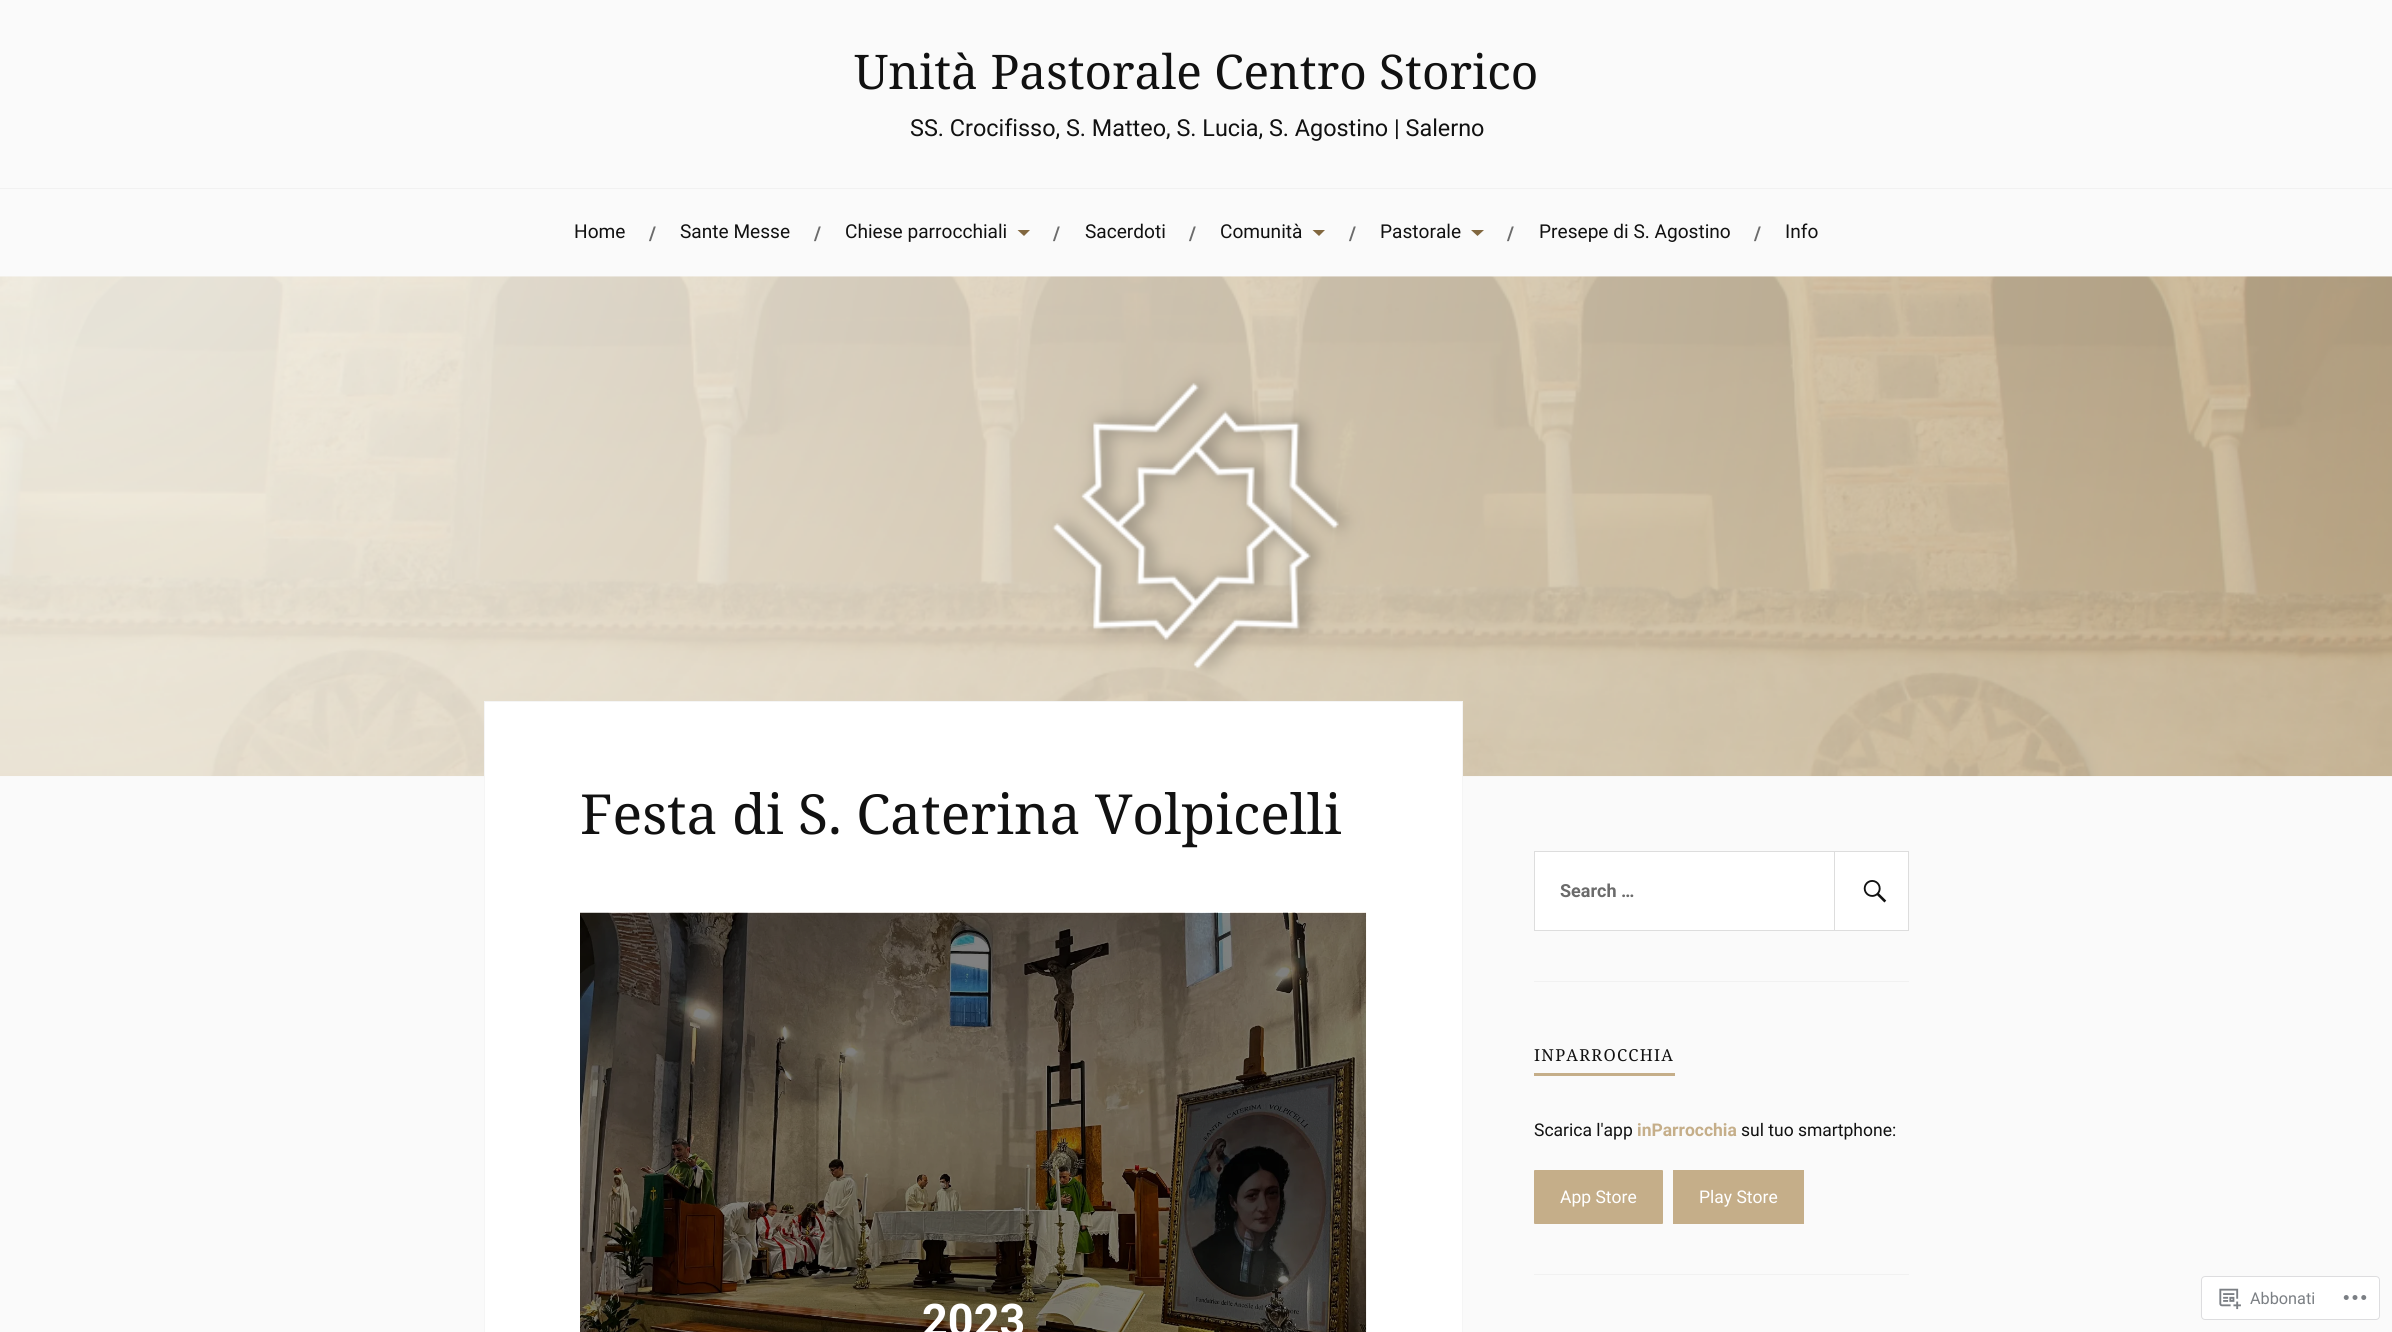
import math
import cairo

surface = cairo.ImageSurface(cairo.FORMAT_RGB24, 2392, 1332)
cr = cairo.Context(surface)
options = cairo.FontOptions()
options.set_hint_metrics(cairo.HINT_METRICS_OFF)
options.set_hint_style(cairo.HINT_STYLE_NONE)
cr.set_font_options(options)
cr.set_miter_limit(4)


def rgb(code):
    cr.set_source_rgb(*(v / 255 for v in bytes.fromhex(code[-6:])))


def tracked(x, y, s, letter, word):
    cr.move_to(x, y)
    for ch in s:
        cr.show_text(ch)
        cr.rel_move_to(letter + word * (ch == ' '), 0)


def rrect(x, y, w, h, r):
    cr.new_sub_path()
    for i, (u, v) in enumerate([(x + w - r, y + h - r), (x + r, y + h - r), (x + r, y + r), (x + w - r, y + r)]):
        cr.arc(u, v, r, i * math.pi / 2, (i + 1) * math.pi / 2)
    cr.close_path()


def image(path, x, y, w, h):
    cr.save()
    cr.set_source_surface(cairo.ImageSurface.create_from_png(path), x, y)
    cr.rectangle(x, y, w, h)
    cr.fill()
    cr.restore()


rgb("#fafafa")
cr.paint()
rgb("#f1f1f1")
cr.rectangle(0, 188, 2392, 1)
cr.fill()
rgb("#81673f")
cr.new_path()
cr.move_to(1017.5, 230)
cr.line_to(1030, 230)
cr.line_to(1024, 236)
cr.close_path()
cr.fill()
cr.new_path()
cr.move_to(1312.5, 230)
cr.line_to(1325, 230)
cr.line_to(1319, 236)
cr.close_path()
cr.fill()
cr.new_path()
cr.move_to(1471, 230)
cr.line_to(1484, 230)
cr.line_to(1477.5, 236)
cr.close_path()
cr.fill()
image("img/1.png", 0, 276, 2392, 501)
rgb("#ffffff")
cr.rectangle(484.5, 701.5, 978, 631)
cr.fill_preserve()
rgb("#f5f5f5")
cr.set_line_width(1)
cr.stroke()
image("img/2.png", 580, 912, 787, 420)
rgb("#ffffff")
cr.rectangle(1534.5, 851.5, 374, 79)
cr.fill_preserve()
rgb("#dddddd")
cr.stroke()
cr.rectangle(1834.5, 851.5, 74, 79)
cr.stroke()
image("img/3.png", 1863, 880, 24, 23)
rgb("#f1f1f1")
cr.rectangle(1534, 981, 375, 1)
cr.fill()
rgb("#c5ae89")
cr.rectangle(1534, 1073, 141, 3)
cr.fill()
rrect(1534, 1170, 129, 54, 1)
cr.fill()
cr.rectangle(1673, 1170, 131, 54)
cr.fill()
rgb("#f1f1f1")
cr.rectangle(1534, 1274, 375, 1)
cr.fill()
rgb("#ffffff")
rrect(2201.5, 1276.5, 178, 43, 3.5)
cr.fill_preserve()
rgb("#dddddf")
cr.stroke()
image("img/4.png", 2219, 1288, 22, 22)
image("img/5.png", 2343, 1295, 24, 5)
cr.select_font_face("Noto Serif")
cr.set_font_size(47.75)
rgb("#111111")
cr.move_to(854, 89)
cr.show_text("Unità Pastorale Centro Storico")
cr.select_font_face("Roboto")
cr.set_font_size(23.4)
cr.move_to(910, 136)
cr.show_text("SS. Crocifisso, S. Matteo, S. Lucia, S. Agostino | Salerno")
cr.set_font_size(19.1)
cr.move_to(574, 238)
cr.show_text("Home")
cr.select_font_face("Roboto", cairo.FONT_SLANT_NORMAL, cairo.FONT_WEIGHT_BOLD)
cr.set_font_size(19)
rgb("#6b6b6b")
cr.move_to(649, 240)
cr.show_text("/")
cr.select_font_face("Roboto")
cr.set_font_size(19.1)
rgb("#111111")
cr.move_to(680, 238)
cr.show_text("Sante Messe")
cr.select_font_face("Roboto", cairo.FONT_SLANT_NORMAL, cairo.FONT_WEIGHT_BOLD)
cr.set_font_size(19)
rgb("#6b6b6b")
cr.move_to(814, 240)
cr.show_text("/")
cr.select_font_face("Roboto")
cr.set_font_size(19.1)
rgb("#111111")
cr.move_to(845, 238)
cr.show_text("Chiese parrocchiali")
cr.select_font_face("Roboto", cairo.FONT_SLANT_NORMAL, cairo.FONT_WEIGHT_BOLD)
cr.set_font_size(19)
rgb("#6b6b6b")
cr.move_to(1053, 240)
cr.show_text("/")
cr.select_font_face("Roboto")
cr.set_font_size(19.1)
rgb("#111111")
cr.move_to(1085, 238)
cr.show_text("Sacerdoti")
cr.select_font_face("Roboto", cairo.FONT_SLANT_NORMAL, cairo.FONT_WEIGHT_BOLD)
cr.set_font_size(19)
rgb("#6b6b6b")
cr.move_to(1189, 240)
cr.show_text("/")
cr.select_font_face("Roboto")
cr.set_font_size(19.1)
rgb("#111111")
cr.move_to(1220, 238)
cr.show_text("Comunità")
cr.select_font_face("Roboto", cairo.FONT_SLANT_NORMAL, cairo.FONT_WEIGHT_BOLD)
cr.set_font_size(19)
rgb("#6b6b6b")
cr.move_to(1349, 240)
cr.show_text("/")
cr.select_font_face("Roboto")
cr.set_font_size(19.1)
rgb("#111111")
cr.move_to(1380, 238)
cr.show_text("Pastorale")
cr.select_font_face("Roboto", cairo.FONT_SLANT_NORMAL, cairo.FONT_WEIGHT_BOLD)
cr.set_font_size(19)
rgb("#6b6b6b")
cr.move_to(1507, 240)
cr.show_text("/")
cr.select_font_face("Roboto")
cr.set_font_size(19.1)
rgb("#111111")
cr.move_to(1539, 238)
cr.show_text("Presepe di S. Agostino")
cr.select_font_face("Roboto", cairo.FONT_SLANT_NORMAL, cairo.FONT_WEIGHT_BOLD)
cr.set_font_size(19)
rgb("#6b6b6b")
cr.move_to(1754, 240)
cr.show_text("/")
cr.select_font_face("Roboto")
cr.set_font_size(19.1)
rgb("#111111")
cr.move_to(1785, 238)
cr.show_text("Info")
cr.select_font_face("Noto Serif")
cr.set_font_size(55.25)
cr.move_to(580, 834)
cr.show_text("Festa di S. Caterina Volpicelli")
cr.select_font_face("Roboto", cairo.FONT_SLANT_NORMAL, cairo.FONT_WEIGHT_BOLD)
cr.set_font_size(45)
rgb("#ffffff")
cr.move_to(922, 1336)
cr.show_text("2023")
cr.set_font_size(18)
rgb("#6b6b6b")
cr.move_to(1560, 897)
cr.show_text("Search …")
cr.select_font_face("Noto Serif")
cr.set_font_size(16.5)
rgb("#111111")
tracked(1534, 1061, "INPARROCCHIA", 1.25, 0)
cr.select_font_face("Roboto")
cr.set_font_size(17.5)
cr.move_to(1534, 1136)
cr.show_text("Scarica l'app")
cr.select_font_face("Roboto", cairo.FONT_SLANT_NORMAL, cairo.FONT_WEIGHT_BOLD)
rgb("#c5ae89")
cr.move_to(1637, 1136)
cr.show_text("inParrocchia")
cr.select_font_face("Roboto")
rgb("#111111")
cr.move_to(1741, 1136)
cr.show_text("sul tuo smartphone:")
rgb("#ffffff")
cr.move_to(1560, 1203)
cr.show_text("App Store")
cr.move_to(1699, 1203)
cr.show_text("Play Store")
cr.set_font_size(16.25)
rgb("#7b7f84")
cr.move_to(2250, 1304)
cr.show_text("Abbonati")
surface.write_to_png("page.png")
